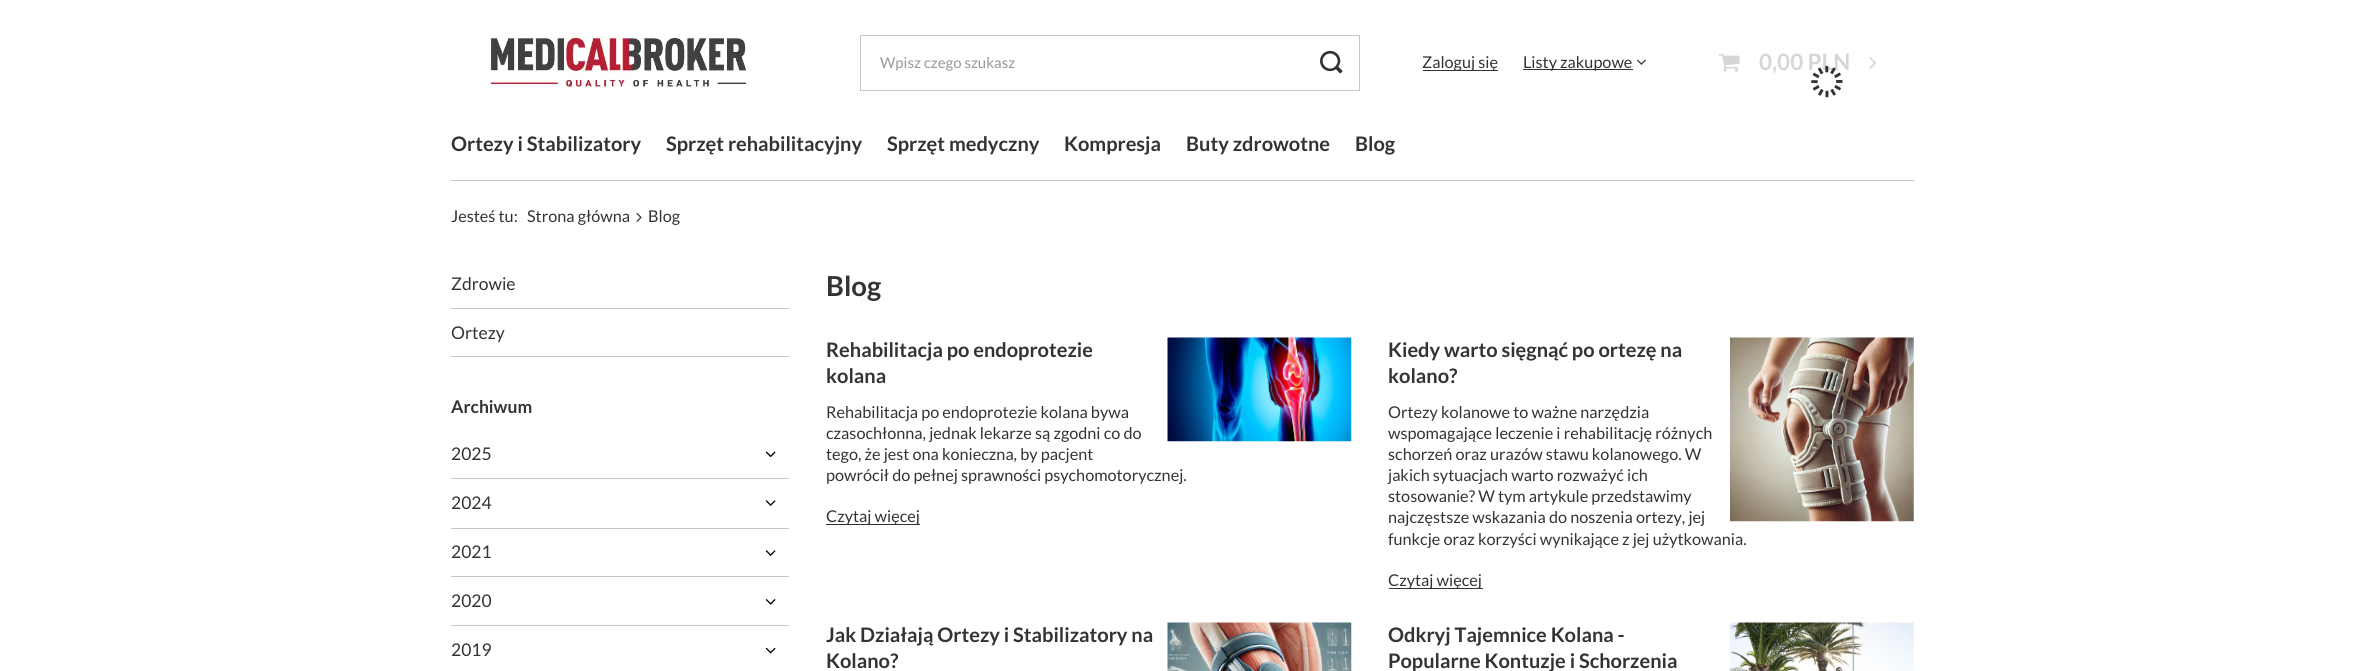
import math
import cairo

surface = cairo.ImageSurface(cairo.FORMAT_RGB24, 2363, 671)
cr = cairo.Context(surface)
options = cairo.FontOptions()
options.set_hint_metrics(cairo.HINT_METRICS_OFF)
options.set_hint_style(cairo.HINT_STYLE_NONE)
cr.set_font_options(options)
cr.set_miter_limit(4)


def rgb(code):
    cr.set_source_rgb(*(v / 255 for v in bytes.fromhex(code[-6:])))


def image(path, x, y, w, h):
    cr.save()
    cr.set_source_surface(cairo.ImageSurface.create_from_png(path), x, y)
    cr.rectangle(x, y, w, h)
    cr.fill()
    cr.restore()


rgb("#ffffff")
cr.paint()
image("img/1.png", 490, 36, 257, 53)
cr.rectangle(860.5, 35.5, 499, 55)
rgb("#c4c7c8")
cr.set_line_width(1)
cr.stroke()
image("img/2.png", 1320, 50, 23, 24)
rgb("#333333")
cr.rectangle(1423, 70, 75, 1)
cr.fill()
cr.rectangle(1523, 69, 110, 1)
cr.fill()
image("img/3.png", 1637, 59, 9, 6)
image("img/4.png", 1718, 54, 22, 18)
image("img/5.png", 1869, 56, 8, 14)
rgb("#c4c7c8")
cr.rectangle(451, 180, 1463, 1)
cr.fill()
image("img/7.png", 636, 212, 6, 10)
for x, y, w, h, color in [
    (451, 308, 338, 1, "#c4c7c8"),
    (451, 356, 338, 1, "#c4c7c8"),
    (451, 478, 338, 1, "#c4c7c8"),
]:
    rgb(color)
    cr.rectangle(x, y, w, h)
    cr.fill()
image("img/8.png", 765, 451, 11, 7)
cr.rectangle(451, 528, 338, 1)
cr.fill()
image("img/9.png", 765, 500, 11, 6)
cr.rectangle(451, 576, 338, 1)
cr.fill()
image("img/9.png", 765, 550, 11, 6)
cr.rectangle(451, 625, 338, 1)
cr.fill()
image("img/10.png", 765, 599, 11, 6)
image("img/11.png", 765, 647, 11, 7)
image("img/12.png", 1167, 337, 185, 105)
rgb("#333333")
cr.rectangle(826, 524, 94, 1)
cr.fill()
image("img/13.png", 1730, 337, 184, 185)
cr.rectangle(1389, 588, 94, 1)
cr.fill()
image("img/14.png", 1167, 622, 185, 49)
image("img/15.png", 1730, 622, 184, 49)
cr.select_font_face("Lato")
cr.set_font_size(15)
rgb("#989898")
cr.move_to(880, 68)
cr.show_text("Wpisz czego szukasz")
cr.set_font_size(16.25)
rgb("#333333")
cr.move_to(1422, 68)
cr.show_text("Zaloguj się")
cr.move_to(1523, 68)
cr.show_text("Listy zakupowe")
cr.select_font_face("Lato", cairo.FONT_SLANT_NORMAL, cairo.FONT_WEIGHT_BOLD)
cr.set_font_size(22.5)
rgb("#d6d6d6")
cr.move_to(1759, 70)
cr.show_text("0,00 PLN")
image("img/6.png", 1811, 65, 32, 33)
cr.set_font_size(20)
rgb("#333333")
for x, y, s in [
    (451, 151, "Ortezy i Stabilizatory"),
    (666, 151, "Sprzęt rehabilitacyjny"),
    (887, 151, "Sprzęt medyczny"),
    (1064, 151, "Kompresja"),
    (1186, 151, "Buty zdrowotne"),
    (1355, 151, "Blog"),
]:
    cr.move_to(x, y)
    cr.show_text(s)
cr.select_font_face("Lato")
cr.set_font_size(16.25)
for x, y, s in [
    (451, 222, "Jesteś tu:"),
    (527, 222, "Strona główna"),
    (648, 222, "Blog"),
]:
    cr.move_to(x, y)
    cr.show_text(s)
cr.set_font_size(17.5)
cr.move_to(451, 290)
cr.show_text("Zdrowie")
cr.move_to(451, 339)
cr.show_text("Ortezy")
cr.select_font_face("Lato", cairo.FONT_SLANT_NORMAL, cairo.FONT_WEIGHT_BOLD)
cr.move_to(451, 413)
cr.show_text("Archiwum")
cr.select_font_face("Lato")
for x, y, s in [
    (451, 460, "2025"),
    (451, 509, "2024"),
    (451, 558, "2021"),
    (451, 607, "2020"),
    (451, 656, "2019"),
]:
    cr.move_to(x, y)
    cr.show_text(s)
cr.select_font_face("Lato", cairo.FONT_SLANT_NORMAL, cairo.FONT_WEIGHT_BOLD)
cr.set_font_size(27.5)
cr.move_to(826, 296)
cr.show_text("Blog")
cr.set_font_size(20)
cr.move_to(826, 357)
cr.show_text("Rehabilitacja po endoprotezie")
cr.move_to(826, 383)
cr.show_text("kolana")
cr.select_font_face("Lato")
cr.set_font_size(16.25)
for x, y, s in [
    (826, 418, "Rehabilitacja po endoprotezie kolana bywa"),
    (826, 439, "czasochłonna, jednak lekarze są zgodni co do"),
    (826, 460, "tego, że jest ona konieczna, by pacjent"),
    (826, 481, "powrócił do pełnej sprawności psychomotorycznej."),
    (826, 522, "Czytaj więcej"),
]:
    cr.move_to(x, y)
    cr.show_text(s)
cr.select_font_face("Lato", cairo.FONT_SLANT_NORMAL, cairo.FONT_WEIGHT_BOLD)
cr.set_font_size(20)
cr.move_to(1388, 357)
cr.show_text("Kiedy warto sięgnąć po ortezę na")
cr.move_to(1388, 383)
cr.show_text("kolano?")
cr.select_font_face("Lato")
cr.set_font_size(16.25)
for x, y, s in [
    (1388, 418, "Ortezy kolanowe to ważne narzędzia"),
    (1388, 439, "wspomagające leczenie i rehabilitację różnych"),
    (1388, 460, "schorzeń oraz urazów stawu kolanowego. W"),
    (1388, 481, "jakich sytuacjach warto rozważyć ich"),
    (1388, 502, "stosowanie? W tym artykule przedstawimy"),
    (1388, 523, "najczęstsze wskazania do noszenia ortezy, jej"),
    (1388, 545, "funkcje oraz korzyści wynikające z jej użytkowania."),
    (1388, 586, "Czytaj więcej"),
]:
    cr.move_to(x, y)
    cr.show_text(s)
cr.select_font_face("Lato", cairo.FONT_SLANT_NORMAL, cairo.FONT_WEIGHT_BOLD)
cr.set_font_size(20)
for x, y, s in [
    (826, 642, "Jak Działają Ortezy i Stabilizatory na"),
    (826, 668, "Kolano?"),
    (1388, 642, "Odkryj Tajemnice Kolana -"),
    (1388, 668, "Popularne Kontuzje i Schorzenia"),
]:
    cr.move_to(x, y)
    cr.show_text(s)
surface.write_to_png("page.png")
